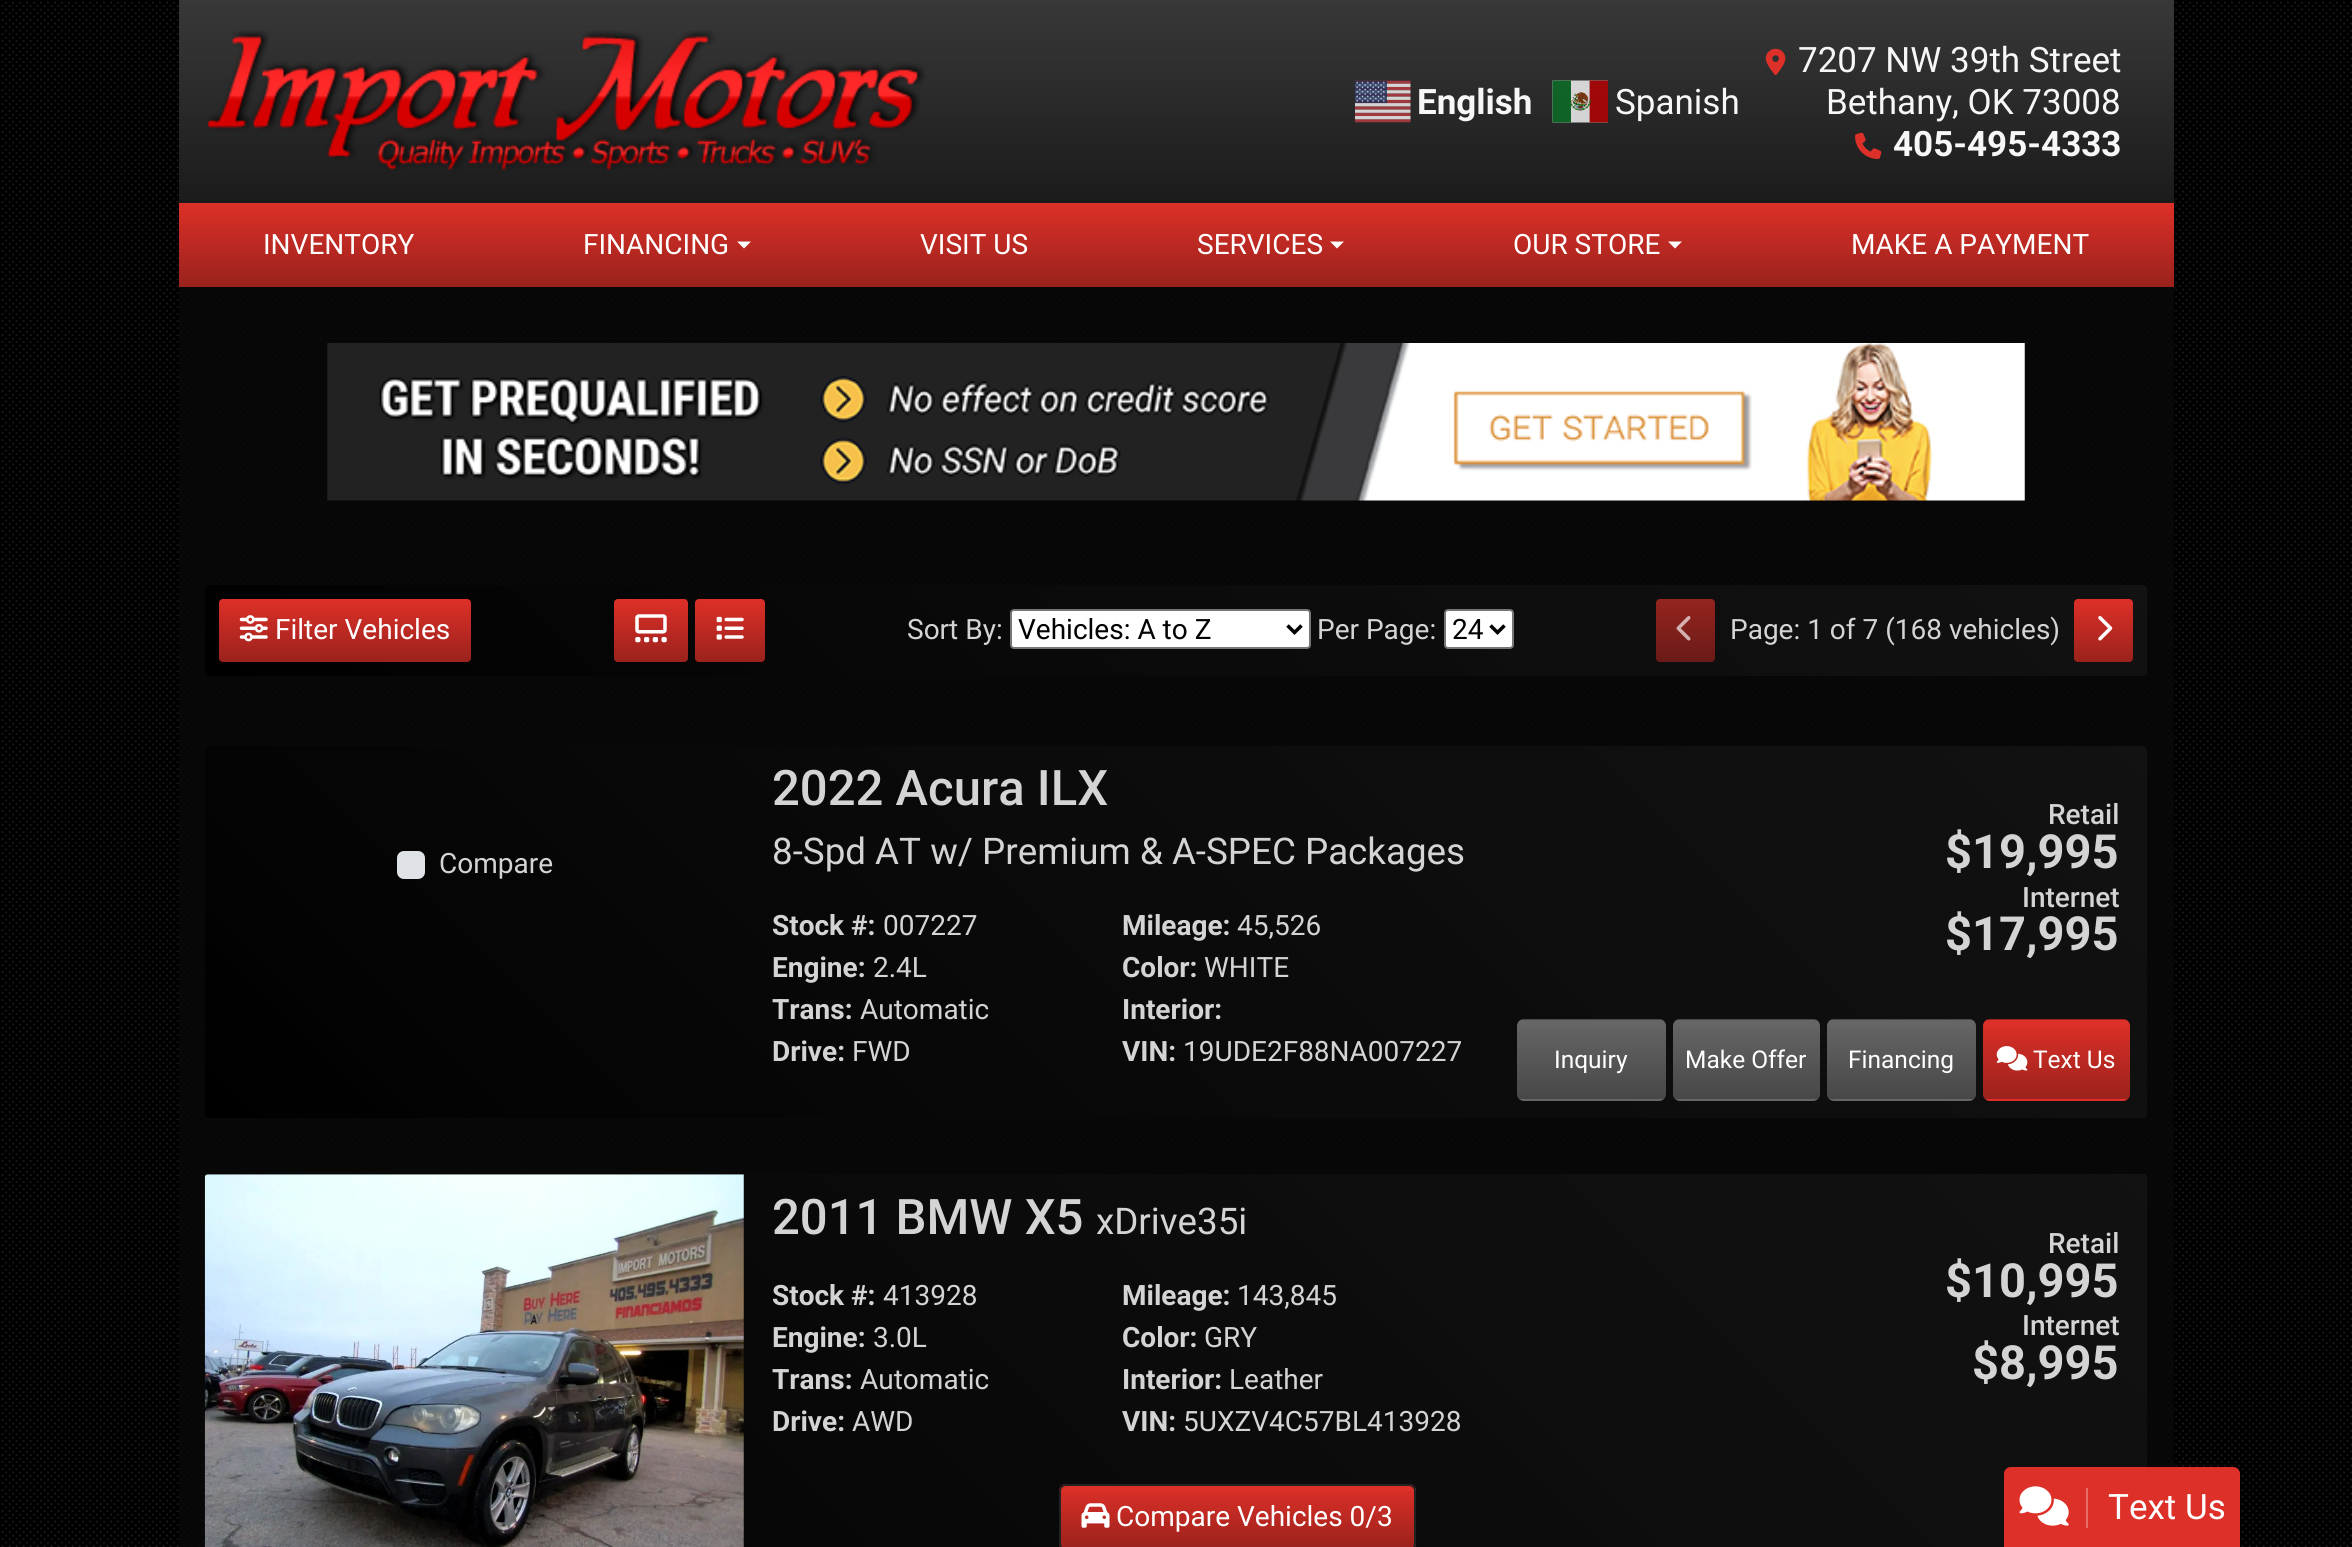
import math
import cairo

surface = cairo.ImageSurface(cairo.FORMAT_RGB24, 2352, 1547)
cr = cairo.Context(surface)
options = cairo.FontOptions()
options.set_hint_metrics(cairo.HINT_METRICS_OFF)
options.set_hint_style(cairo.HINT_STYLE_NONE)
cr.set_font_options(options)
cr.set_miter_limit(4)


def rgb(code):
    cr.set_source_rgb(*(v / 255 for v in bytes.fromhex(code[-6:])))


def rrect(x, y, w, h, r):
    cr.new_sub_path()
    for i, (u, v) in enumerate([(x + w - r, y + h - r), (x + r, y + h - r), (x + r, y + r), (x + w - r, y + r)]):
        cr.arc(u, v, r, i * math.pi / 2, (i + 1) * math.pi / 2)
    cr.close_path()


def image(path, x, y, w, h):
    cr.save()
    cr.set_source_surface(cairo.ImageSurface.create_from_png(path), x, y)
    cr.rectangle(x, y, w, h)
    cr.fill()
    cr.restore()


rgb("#000000")
cr.paint()
image("img/1.png", 1, 1, 2351, 1546)
gradient = cairo.LinearGradient(1176, 0, 1176, 203)
gradient.add_color_stop_rgba(0, 0.22, 0.22, 0.22, 1)
gradient.add_color_stop_rgba(1, 0.106, 0.106, 0.106, 1)
cr.set_source(gradient)
cr.rectangle(179, 0, 1995, 203)
cr.fill()
image("img/2.png", 207, 30, 718, 141)
image("img/3.png", 1355, 80, 56, 43)
image("img/4.png", 1552, 80, 56, 43)
image("img/5.png", 1765, 48, 21, 27)
image("img/6.png", 1855, 132, 27, 27)
gradient = cairo.LinearGradient(1176, 203, 1176, 287)
gradient.add_color_stop_rgba(0, 0.863, 0.188, 0.157, 1)
gradient.add_color_stop_rgba(1, 0.604, 0.133, 0.11, 1)
cr.set_source(gradient)
cr.rectangle(179, 203, 1995, 84)
cr.fill()
rgb("#ffffff")
cr.new_path()
cr.move_to(737, 241.5)
cr.line_to(751, 241.5)
cr.line_to(744, 248.5)
cr.close_path()
cr.fill()
cr.new_path()
cr.move_to(1330, 241.5)
cr.line_to(1344, 241.5)
cr.line_to(1337, 248.5)
cr.close_path()
cr.fill()
cr.new_path()
cr.move_to(1668, 241.5)
cr.line_to(1682, 241.5)
cr.line_to(1675, 248.5)
cr.close_path()
cr.fill()
cr.set_source_rgba(0.031, 0.031, 0.031, 0.9)
cr.rectangle(179, 287, 1995, 1260)
cr.fill()
image("img/7.png", 327, 343, 1698, 158)
cr.set_source_rgba(0.078, 0.078, 0.078, 0.6)
rrect(205, 585, 1942, 91, 4)
cr.fill()
gradient = cairo.LinearGradient(668, 1138, 1684, 122)
gradient.add_color_stop_rgba(0, 0, 0, 0, 1)
gradient.add_color_stop_rgba(1, 0.078, 0.078, 0.078, 0.6)
cr.set_source(gradient)
rrect(205, 585, 1942, 91, 4)
cr.fill()
rgb("#dd3028")
rrect(219, 599, 252, 63, 4)
cr.fill()
gradient = cairo.LinearGradient(345, 599, 345, 662)
gradient.add_color_stop_rgba(0, 0, 0, 0, 0)
gradient.add_color_stop_rgba(1, 0, 0, 0, 0.3)
cr.set_source(gradient)
rrect(219, 599, 252, 63, 4)
cr.fill()
image("img/8.png", 239, 615, 29, 27)
rgb("#dd3028")
rrect(614, 599, 74, 63, 4)
cr.fill()
gradient = cairo.LinearGradient(651, 599, 651, 662)
gradient.add_color_stop_rgba(0, 0, 0, 0, 0)
gradient.add_color_stop_rgba(1, 0, 0, 0, 0.3)
cr.set_source(gradient)
rrect(614, 599, 74, 63, 4)
cr.fill()
image("img/9.png", 635, 614, 32, 29)
rgb("#dd3028")
rrect(695, 599, 70, 63, 4)
cr.fill()
gradient = cairo.LinearGradient(730, 599, 730, 662)
gradient.add_color_stop_rgba(0, 0, 0, 0, 0)
gradient.add_color_stop_rgba(1, 0, 0, 0, 0.3)
cr.set_source(gradient)
rrect(695, 599, 70, 63, 4)
cr.fill()
image("img/10.png", 716, 616, 28, 24)
rgb("#ffffff")
rrect(1011, 610, 299, 38, 3)
cr.fill_preserve()
rgb("#767676")
cr.stroke()
cr.new_path()
cr.move_to(1287.5, 625.5)
cr.line_to(1294.5, 632.5)
cr.line_to(1301.5, 625.5)
rgb("#000000")
cr.set_line_width(3.5)
cr.stroke()
rgb("#ffffff")
rrect(1445, 610, 68, 38, 3)
cr.fill_preserve()
rgb("#767676")
cr.set_line_width(2)
cr.stroke()
cr.new_path()
cr.move_to(1490.5, 625.5)
cr.line_to(1497.5, 632.5)
cr.line_to(1504.5, 625.5)
rgb("#000000")
cr.set_line_width(3.5)
cr.stroke()
rgb("#95241f")
rrect(1656, 599, 59, 63, 4)
cr.fill()
gradient = cairo.LinearGradient(1685, 599, 1685, 662)
gradient.add_color_stop_rgba(0, 0.02, 0.02, 0.02, 0)
gradient.add_color_stop_rgba(1, 0.02, 0.02, 0.02, 0.3)
cr.set_source(gradient)
rrect(1656, 599, 59, 63, 4)
cr.fill()
image("img/11.png", 1676, 616, 15, 25)
rgb("#dd3028")
rrect(2074, 599, 59, 63, 4)
cr.fill()
gradient = cairo.LinearGradient(2104, 599, 2104, 662)
gradient.add_color_stop_rgba(0, 0, 0, 0, 0)
gradient.add_color_stop_rgba(1, 0, 0, 0, 0.3)
cr.set_source(gradient)
rrect(2074, 599, 59, 63, 4)
cr.fill()
image("img/12.png", 2098, 616, 15, 25)
cr.set_source_rgba(0.078, 0.078, 0.078, 0.6)
rrect(205, 746, 1942, 372, 4)
cr.fill()
gradient = cairo.LinearGradient(597, 1511, 1755, 353)
gradient.add_color_stop_rgba(0, 0, 0, 0, 1)
gradient.add_color_stop_rgba(1, 0.078, 0.078, 0.078, 0.6)
cr.set_source(gradient)
rrect(205, 746, 1942, 372, 4)
cr.fill()
rgb("#dee2e6")
rrect(397, 851, 28, 28, 7)
cr.fill()
rgb("#666666")
rrect(1517, 1019, 149, 82, 7)
cr.fill()
cr.save()
rrect(1517, 1019, 149, 82, 7)
cr.clip()
gradient = cairo.LinearGradient(1592, 942, 1592, 1020)
gradient.add_color_stop_rgba(0, 0, 0, 0, 0)
gradient.add_color_stop_rgba(1, 0, 0, 0, 0.3)
cr.set_source(gradient)
cr.rectangle(1517, 1019, 149, 1)
cr.fill()
gradient = cairo.LinearGradient(1592, 1020, 1592, 1099)
gradient.add_color_stop_rgba(0, 0, 0, 0, 0)
gradient.add_color_stop_rgba(1, 0, 0, 0, 0.3)
cr.set_source(gradient)
cr.rectangle(1517, 1026, 149, 73)
cr.fill()
cr.restore()
rrect(1673, 1019, 147, 82, 7)
cr.fill()
cr.save()
rrect(1673, 1019, 147, 82, 7)
cr.clip()
gradient = cairo.LinearGradient(1747, 942, 1747, 1020)
gradient.add_color_stop_rgba(0, 0, 0, 0, 0)
gradient.add_color_stop_rgba(1, 0, 0, 0, 0.3)
cr.set_source(gradient)
cr.rectangle(1673, 1019, 147, 1)
cr.fill()
gradient = cairo.LinearGradient(1747, 1020, 1747, 1099)
gradient.add_color_stop_rgba(0, 0, 0, 0, 0)
gradient.add_color_stop_rgba(1, 0, 0, 0, 0.3)
cr.set_source(gradient)
cr.rectangle(1673, 1026, 147, 73)
cr.fill()
cr.restore()
rrect(1827, 1019, 149, 82, 7)
cr.fill()
cr.save()
rrect(1827, 1019, 149, 82, 7)
cr.clip()
gradient = cairo.LinearGradient(1901, 942, 1901, 1020)
gradient.add_color_stop_rgba(0, 0, 0, 0, 0)
gradient.add_color_stop_rgba(1, 0, 0, 0, 0.3)
cr.set_source(gradient)
cr.rectangle(1827, 1019, 149, 1)
cr.fill()
gradient = cairo.LinearGradient(1901, 1020, 1901, 1099)
gradient.add_color_stop_rgba(0, 0, 0, 0, 0)
gradient.add_color_stop_rgba(1, 0, 0, 0, 0.3)
cr.set_source(gradient)
cr.rectangle(1827, 1026, 149, 73)
cr.fill()
cr.restore()
rgb("#dd3028")
rrect(1983, 1019, 147, 82, 7)
cr.fill()
cr.save()
rrect(1983, 1019, 147, 82, 7)
cr.clip()
gradient = cairo.LinearGradient(2056, 942, 2056, 1020)
gradient.add_color_stop_rgba(0, 0, 0, 0, 0)
gradient.add_color_stop_rgba(1, 0, 0, 0, 0.3)
cr.set_source(gradient)
cr.rectangle(1983, 1019, 147, 1)
cr.fill()
gradient = cairo.LinearGradient(2056, 1020, 2056, 1099)
gradient.add_color_stop_rgba(0, 0, 0, 0, 0)
gradient.add_color_stop_rgba(1, 0, 0, 0, 0.3)
cr.set_source(gradient)
cr.rectangle(1983, 1026, 147, 73)
cr.fill()
cr.restore()
image("img/13.png", 1996, 1046, 32, 25)
cr.set_source_rgba(0.078, 0.078, 0.078, 0.6)
rrect(205, 1174, 1942, 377, 4)
cr.fill()
gradient = cairo.LinearGradient(572, 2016, 1780, 807)
gradient.add_color_stop_rgba(0, 0, 0, 0, 1)
gradient.add_color_stop_rgba(1, 0.078, 0.078, 0.078, 0.6)
cr.set_source(gradient)
rrect(205, 1174, 1942, 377, 4)
cr.fill()
image("img/14.png", 204, 1174, 540, 373)
rgb("#dd3028")
rrect(1059, 1484, 357, 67, 7)
cr.fill()
gradient = cairo.LinearGradient(1237, 1486, 1237, 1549)
gradient.add_color_stop_rgba(0, 0, 0, 0, 0)
gradient.add_color_stop_rgba(1, 0, 0, 0, 0.3)
cr.set_source(gradient)
cr.rectangle(1059, 1491, 357, 56)
cr.fill()
rrect(1060, 1485, 355, 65, 6)
rgb("#222222")
cr.set_line_width(2)
cr.stroke()
image("img/15.png", 1081, 1503, 29, 25)
rgb("#dd3028")
cr.new_path()
cr.move_to(2011, 1467)
cr.line_to(2233, 1467)
cr.curve_to(2237, 1467, 2240, 1470, 2240, 1474)
cr.line_to(2240, 1547)
cr.line_to(2004, 1547)
cr.line_to(2004, 1474)
cr.curve_to(2004, 1470, 2007, 1467, 2011, 1467)
cr.close_path()
cr.fill()
rgb("#e76e69")
cr.rectangle(2086, 1488, 2, 40)
cr.fill()
image("img/16.png", 2019, 1486, 50, 40)
cr.select_font_face("Roboto", cairo.FONT_SLANT_NORMAL, cairo.FONT_WEIGHT_BOLD)
cr.set_font_size(35)
rgb("#f7f7f7")
cr.move_to(1417, 114)
cr.show_text("English")
cr.select_font_face("Roboto")
for x, y, s in [
    (1615, 114, "Spanish"),
    (1798, 72, "7207 NW 39th Street"),
    (1826, 114, "Bethany, OK 73008"),
]:
    cr.move_to(x, y)
    cr.show_text(s)
cr.select_font_face("Roboto", cairo.FONT_SLANT_NORMAL, cairo.FONT_WEIGHT_BOLD)
cr.move_to(1893, 156)
cr.show_text("405-495-4333")
cr.select_font_face("Roboto")
cr.set_font_size(28)
rgb("#ffffff")
for x, y, s in [
    (263, 254, "INVENTORY"),
    (583, 254, "FINANCING"),
    (920, 254, "VISIT US"),
    (1197, 254, "SERVICES"),
    (1513, 254, "OUR STORE"),
    (1851, 254, "MAKE A PAYMENT"),
    (275, 639, "Filter Vehicles"),
]:
    cr.move_to(x, y)
    cr.show_text(s)
rgb("#d4d4d4")
cr.move_to(907, 639)
cr.show_text("Sort By:")
rgb("#000000")
cr.move_to(1018, 639)
cr.show_text("Vehicles: A to Z")
rgb("#d4d4d4")
cr.move_to(1317, 639)
cr.show_text("Per Page:")
rgb("#000000")
cr.move_to(1452, 639)
cr.show_text("24")
rgb("#d4d4d4")
cr.move_to(1730, 639)
cr.show_text("Page: 1 of 7 (168 vehicles)")
cr.move_to(439, 873)
cr.show_text("Compare")
cr.select_font_face("Roboto Medium")
cr.set_font_size(49)
cr.move_to(772, 805)
cr.show_text("2022 Acura ILX")
cr.select_font_face("Roboto")
cr.set_font_size(36.75)
cr.move_to(772, 864)
cr.show_text("8-Spd AT w/ Premium & A-SPEC Packages")
cr.select_font_face("Roboto", cairo.FONT_SLANT_NORMAL, cairo.FONT_WEIGHT_BOLD)
cr.set_font_size(28)
cr.move_to(772, 935)
cr.show_text("Stock #:")
cr.select_font_face("Roboto")
cr.move_to(883, 935)
cr.show_text("007227")
cr.select_font_face("Roboto", cairo.FONT_SLANT_NORMAL, cairo.FONT_WEIGHT_BOLD)
cr.move_to(772, 977)
cr.show_text("Engine:")
cr.select_font_face("Roboto")
cr.move_to(873, 977)
cr.show_text("2.4L")
cr.select_font_face("Roboto", cairo.FONT_SLANT_NORMAL, cairo.FONT_WEIGHT_BOLD)
cr.move_to(772, 1019)
cr.show_text("Trans:")
cr.select_font_face("Roboto")
cr.move_to(860, 1019)
cr.show_text("Automatic")
cr.select_font_face("Roboto", cairo.FONT_SLANT_NORMAL, cairo.FONT_WEIGHT_BOLD)
cr.move_to(772, 1061)
cr.show_text("Drive:")
cr.select_font_face("Roboto")
cr.move_to(852, 1061)
cr.show_text("FWD")
cr.select_font_face("Roboto", cairo.FONT_SLANT_NORMAL, cairo.FONT_WEIGHT_BOLD)
cr.move_to(1122, 935)
cr.show_text("Mileage:")
cr.select_font_face("Roboto")
cr.move_to(1237, 935)
cr.show_text("45,526")
cr.select_font_face("Roboto", cairo.FONT_SLANT_NORMAL, cairo.FONT_WEIGHT_BOLD)
cr.move_to(1122, 977)
cr.show_text("Color:")
cr.select_font_face("Roboto")
cr.move_to(1204, 977)
cr.show_text("WHITE")
cr.select_font_face("Roboto", cairo.FONT_SLANT_NORMAL, cairo.FONT_WEIGHT_BOLD)
cr.move_to(1122, 1019)
cr.show_text("Interior:")
cr.move_to(1122, 1061)
cr.show_text("VIN:")
cr.select_font_face("Roboto")
cr.move_to(1183, 1061)
cr.show_text("19UDE2F88NA007227")
cr.select_font_face("Roboto Medium")
cr.move_to(2048, 824)
cr.show_text("Retail")
cr.select_font_face("Roboto", cairo.FONT_SLANT_NORMAL, cairo.FONT_WEIGHT_BOLD)
cr.set_font_size(47)
cr.move_to(1945, 868)
cr.show_text("$19,995")
cr.select_font_face("Roboto Medium")
cr.set_font_size(28)
cr.move_to(2022, 907)
cr.show_text("Internet")
cr.select_font_face("Roboto", cairo.FONT_SLANT_NORMAL, cairo.FONT_WEIGHT_BOLD)
cr.set_font_size(47)
cr.move_to(1945, 950)
cr.show_text("$17,995")
cr.select_font_face("Roboto")
cr.set_font_size(24.5)
rgb("#ffffff")
for x, y, s in [
    (1554, 1068, "Inquiry"),
    (1685, 1068, "Make Offer"),
    (1848, 1068, "Financing"),
    (2033, 1068, "Text Us"),
]:
    cr.move_to(x, y)
    cr.show_text(s)
cr.select_font_face("Roboto Medium")
cr.set_font_size(49)
rgb("#d4d4d4")
cr.move_to(772, 1234)
cr.show_text("2011 BMW X5")
cr.select_font_face("Roboto")
cr.set_font_size(36.75)
cr.move_to(1096, 1234)
cr.show_text("xDrive35i")
cr.select_font_face("Roboto", cairo.FONT_SLANT_NORMAL, cairo.FONT_WEIGHT_BOLD)
cr.set_font_size(28)
cr.move_to(772, 1305)
cr.show_text("Stock #:")
cr.select_font_face("Roboto")
cr.move_to(883, 1305)
cr.show_text("413928")
cr.select_font_face("Roboto", cairo.FONT_SLANT_NORMAL, cairo.FONT_WEIGHT_BOLD)
cr.move_to(772, 1347)
cr.show_text("Engine:")
cr.select_font_face("Roboto")
cr.move_to(873, 1347)
cr.show_text("3.0L")
cr.select_font_face("Roboto", cairo.FONT_SLANT_NORMAL, cairo.FONT_WEIGHT_BOLD)
cr.move_to(772, 1389)
cr.show_text("Trans:")
cr.select_font_face("Roboto")
cr.move_to(860, 1389)
cr.show_text("Automatic")
cr.select_font_face("Roboto", cairo.FONT_SLANT_NORMAL, cairo.FONT_WEIGHT_BOLD)
cr.move_to(772, 1431)
cr.show_text("Drive:")
cr.select_font_face("Roboto")
cr.move_to(852, 1431)
cr.show_text("AWD")
cr.select_font_face("Roboto", cairo.FONT_SLANT_NORMAL, cairo.FONT_WEIGHT_BOLD)
cr.move_to(1122, 1305)
cr.show_text("Mileage:")
cr.select_font_face("Roboto")
cr.move_to(1237, 1305)
cr.show_text("143,845")
cr.select_font_face("Roboto", cairo.FONT_SLANT_NORMAL, cairo.FONT_WEIGHT_BOLD)
cr.move_to(1122, 1347)
cr.show_text("Color:")
cr.select_font_face("Roboto")
cr.move_to(1204, 1347)
cr.show_text("GRY")
cr.select_font_face("Roboto", cairo.FONT_SLANT_NORMAL, cairo.FONT_WEIGHT_BOLD)
cr.move_to(1122, 1389)
cr.show_text("Interior:")
cr.select_font_face("Roboto")
cr.move_to(1229, 1389)
cr.show_text("Leather")
cr.select_font_face("Roboto", cairo.FONT_SLANT_NORMAL, cairo.FONT_WEIGHT_BOLD)
cr.move_to(1122, 1431)
cr.show_text("VIN:")
cr.select_font_face("Roboto")
cr.move_to(1183, 1431)
cr.show_text("5UXZV4C57BL413928")
cr.select_font_face("Roboto Medium")
cr.move_to(2048, 1253)
cr.show_text("Retail")
cr.select_font_face("Roboto", cairo.FONT_SLANT_NORMAL, cairo.FONT_WEIGHT_BOLD)
cr.set_font_size(47)
cr.move_to(1945, 1297)
cr.show_text("$10,995")
cr.select_font_face("Roboto Medium")
cr.set_font_size(28)
cr.move_to(2022, 1335)
cr.show_text("Internet")
cr.select_font_face("Roboto", cairo.FONT_SLANT_NORMAL, cairo.FONT_WEIGHT_BOLD)
cr.set_font_size(47)
cr.move_to(1972, 1379)
cr.show_text("$8,995")
cr.select_font_face("Roboto")
cr.set_font_size(28)
rgb("#ffffff")
cr.move_to(1116, 1526)
cr.show_text("Compare Vehicles 0/3")
cr.set_font_size(35)
cr.move_to(2108, 1519)
cr.show_text("Text Us")
surface.write_to_png("page.png")
